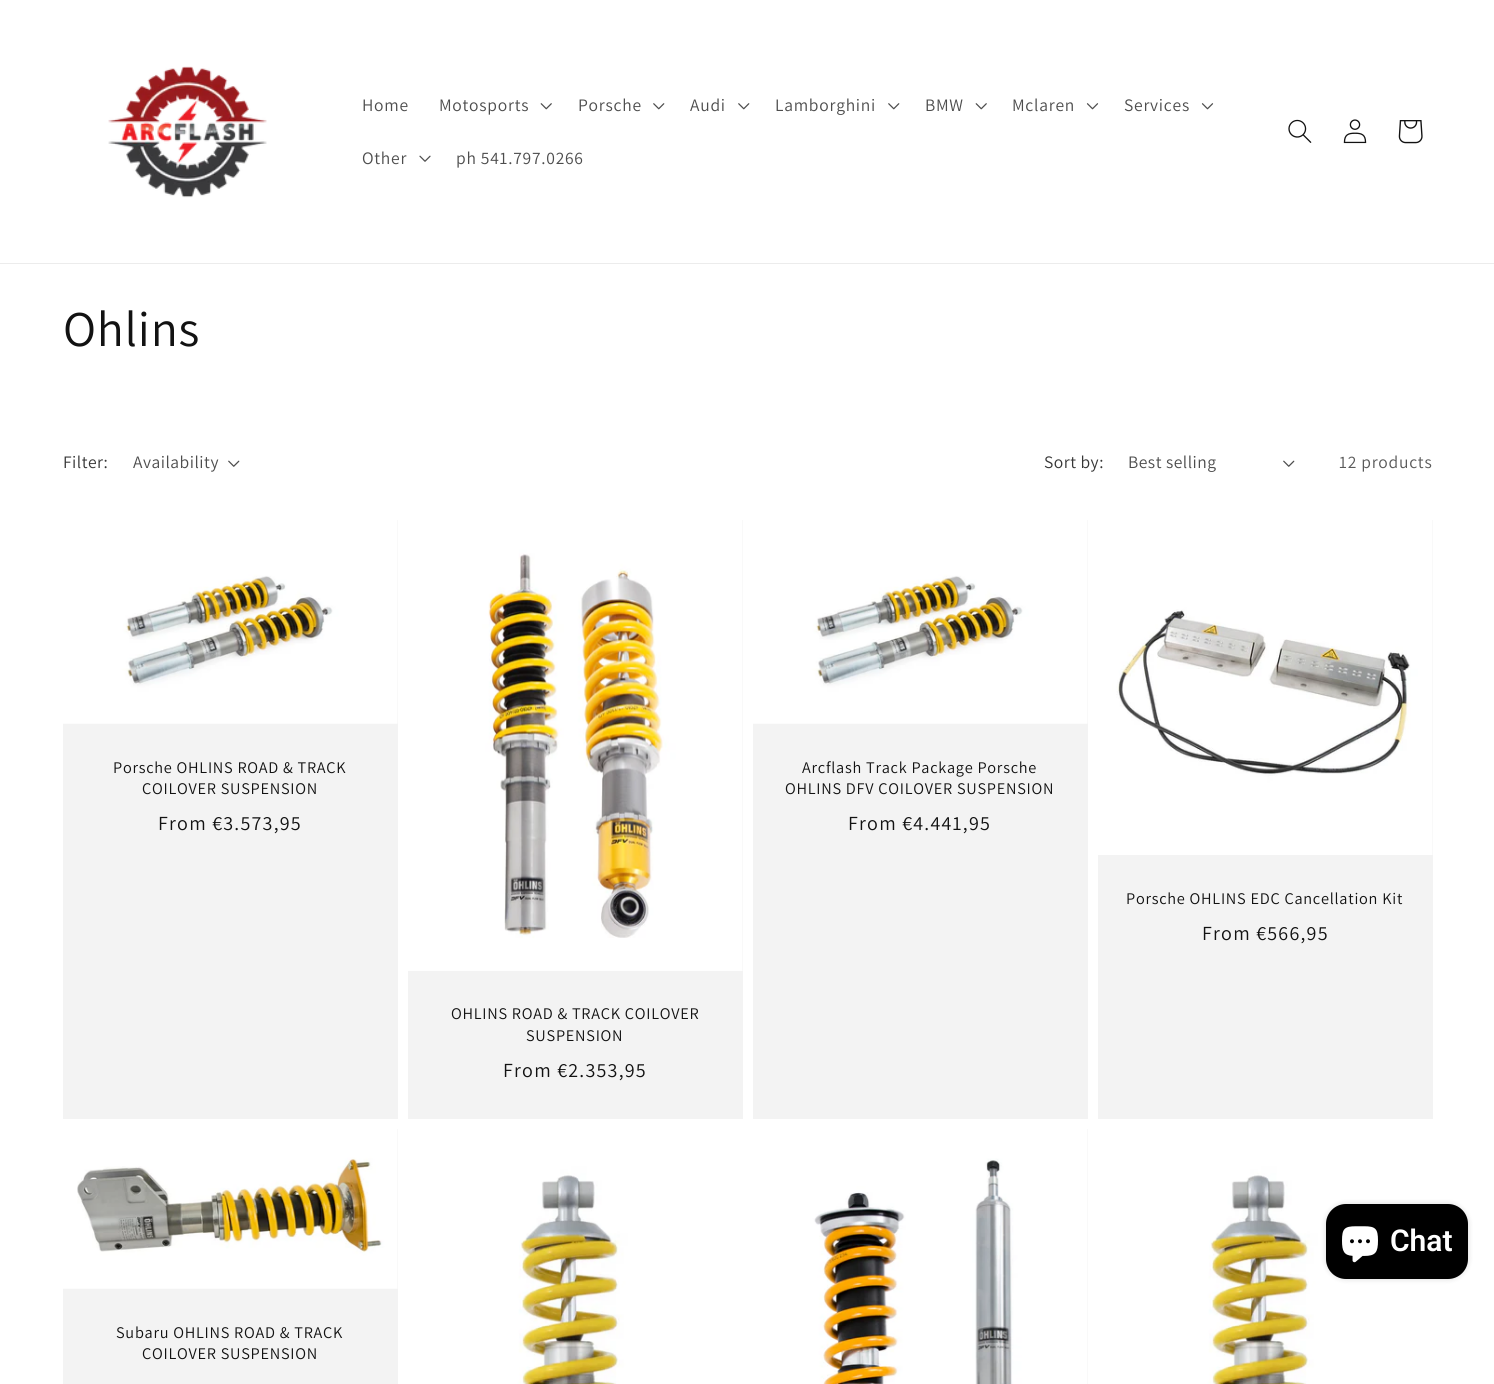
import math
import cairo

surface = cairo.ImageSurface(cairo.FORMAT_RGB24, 1494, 1384)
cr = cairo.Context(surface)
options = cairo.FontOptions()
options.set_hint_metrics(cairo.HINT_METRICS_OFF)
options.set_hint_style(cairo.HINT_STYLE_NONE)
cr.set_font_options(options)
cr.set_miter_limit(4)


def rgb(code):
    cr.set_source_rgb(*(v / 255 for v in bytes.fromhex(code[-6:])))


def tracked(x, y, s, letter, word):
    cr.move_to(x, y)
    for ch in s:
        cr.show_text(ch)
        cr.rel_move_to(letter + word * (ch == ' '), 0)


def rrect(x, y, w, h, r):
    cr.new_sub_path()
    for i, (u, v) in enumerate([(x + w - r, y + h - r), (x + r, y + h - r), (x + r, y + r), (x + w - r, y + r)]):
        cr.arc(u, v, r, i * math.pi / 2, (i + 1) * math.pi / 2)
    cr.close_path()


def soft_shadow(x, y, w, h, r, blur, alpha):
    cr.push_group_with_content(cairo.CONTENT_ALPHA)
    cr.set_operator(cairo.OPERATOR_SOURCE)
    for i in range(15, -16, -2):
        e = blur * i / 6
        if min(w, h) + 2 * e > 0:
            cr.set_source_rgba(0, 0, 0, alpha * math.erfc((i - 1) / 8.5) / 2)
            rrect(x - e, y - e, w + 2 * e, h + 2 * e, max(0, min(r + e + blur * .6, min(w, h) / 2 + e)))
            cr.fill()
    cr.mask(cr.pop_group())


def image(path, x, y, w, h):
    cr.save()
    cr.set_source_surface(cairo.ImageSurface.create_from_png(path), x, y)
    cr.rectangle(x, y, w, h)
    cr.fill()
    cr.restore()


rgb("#ffffff")
cr.paint()
rgb("#ececec")
cr.rectangle(0, 263, 1494, 1)
cr.fill()
image("img/1.png", 108, 66, 159, 132)
image("img/2.png", 540, 103, 12, 7)
image("img/3.png", 653, 103, 12, 7)
image("img/3.png", 738, 103, 12, 7)
image("img/3.png", 888, 103, 12, 7)
image("img/2.png", 975, 103, 12, 7)
image("img/4.png", 1086, 103, 13, 7)
image("img/4.png", 1201, 103, 13, 7)
image("img/5.png", 419, 155, 12, 7)
image("img/6.png", 1288, 119, 24, 24)
image("img/7.png", 1343, 119, 24, 25)
image("img/8.png", 1398, 120, 25, 24)
image("img/9.png", 228, 460, 12, 7)
image("img/9.png", 1283, 460, 12, 7)
rgb("#f3f3f3")
cr.rectangle(63, 520, 335, 599)
cr.fill()
image("img/10.png", 63, 520, 335, 204)
cr.rectangle(753, 520, 335, 599)
cr.fill()
image("img/10.png", 753, 520, 335, 204)
cr.rectangle(1098, 520, 335, 599)
cr.fill()
image("img/11.png", 1098, 520, 335, 335)
cr.rectangle(408, 520, 335, 599)
cr.fill()
image("img/12.png", 408, 520, 335, 451)
cr.rectangle(63, 1129, 335, 255)
cr.fill()
image("img/13.png", 63, 1129, 335, 160)
image("img/14.png", 408, 1129, 335, 255)
cr.rectangle(1087, 1129, 1, 255)
cr.fill()
image("img/15.png", 753, 1129, 335, 255)
image("img/16.png", 1098, 1129, 335, 255)
rgb("#000000")
soft_shadow(1326, 1204, 142, 75, 20, 3, 0.15)
rgb("#000000")
rrect(1326, 1204, 142, 75, 20)
cr.fill()
image("img/17.png", 1342, 1226, 36, 37)
cr.select_font_face("Assistant")
cr.set_font_size(17.5)
rgb("#4d4d4d")
for x, y, s in [
    (362, 111, "Home"),
    (439, 111, "Motosports"),
    (578, 111, "Porsche"),
    (690, 111, "Audi"),
    (775, 111, "Lamborghini"),
    (925, 111, "BMW"),
    (1012, 111, "Mclaren"),
    (1124, 111, "Services"),
    (362, 164, "Other"),
    (456, 164, "ph 541.797.0266"),
]:
    tracked(x, y, s, 0.75, 0)
cr.set_font_size(50)
rgb("#121212")
tracked(63, 346, "Ohlins", 0.75, 0)
cr.set_font_size(17.5)
rgb("#363636")
tracked(63, 468, "Filter:", 0.5, 0)
rgb("#4d4d4d")
tracked(133, 468, "Availability", 0.5, 0)
rgb("#363636")
tracked(1044, 468, "Sort by:", 0.5, 0)
rgb("#4d4d4d")
tracked(1128, 468, "Best selling", 0.5, 0)
rgb("#595959")
tracked(1339, 468, "12 products", 0.75, 0)
cr.set_font_size(16.25)
rgb("#121212")
tracked(113, 773, "Porsche OHLINS ROAD & TRACK", 0.75, 0)
tracked(142, 794, "COILOVER SUSPENSION", 0.75, 0)
cr.set_font_size(20)
tracked(158, 830, "From €3.573,95", 1.25, 0)
cr.set_font_size(16.25)
tracked(802, 773, "Arcflash Track Package Porsche", 0.75, 0)
tracked(785, 794, "OHLINS DFV COILOVER SUSPENSION", 0.75, 0)
cr.set_font_size(20)
tracked(848, 830, "From €4.441,95", 1.25, 0)
cr.set_font_size(16.25)
tracked(1126, 904, "Porsche OHLINS EDC Cancellation Kit", 0.75, 0)
cr.set_font_size(20)
tracked(1202, 940, "From €566,95", 1.25, 0)
cr.set_font_size(16.25)
tracked(451, 1019, "OHLINS ROAD & TRACK COILOVER", 0.75, 0)
tracked(526, 1041, "SUSPENSION", 0.75, 0)
cr.set_font_size(20)
tracked(503, 1077, "From €2.353,95", 1.25, 0)
cr.set_font_size(16.25)
tracked(116, 1338, "Subaru OHLINS ROAD & TRACK", 0.75, 0)
tracked(142, 1359, "COILOVER SUSPENSION", 0.75, 0)
cr.select_font_face("Roboto SemiBold")
cr.set_font_size(30)
rgb("#ffffff")
cr.move_to(1390, 1251)
cr.show_text("Chat")
surface.write_to_png("page.png")
